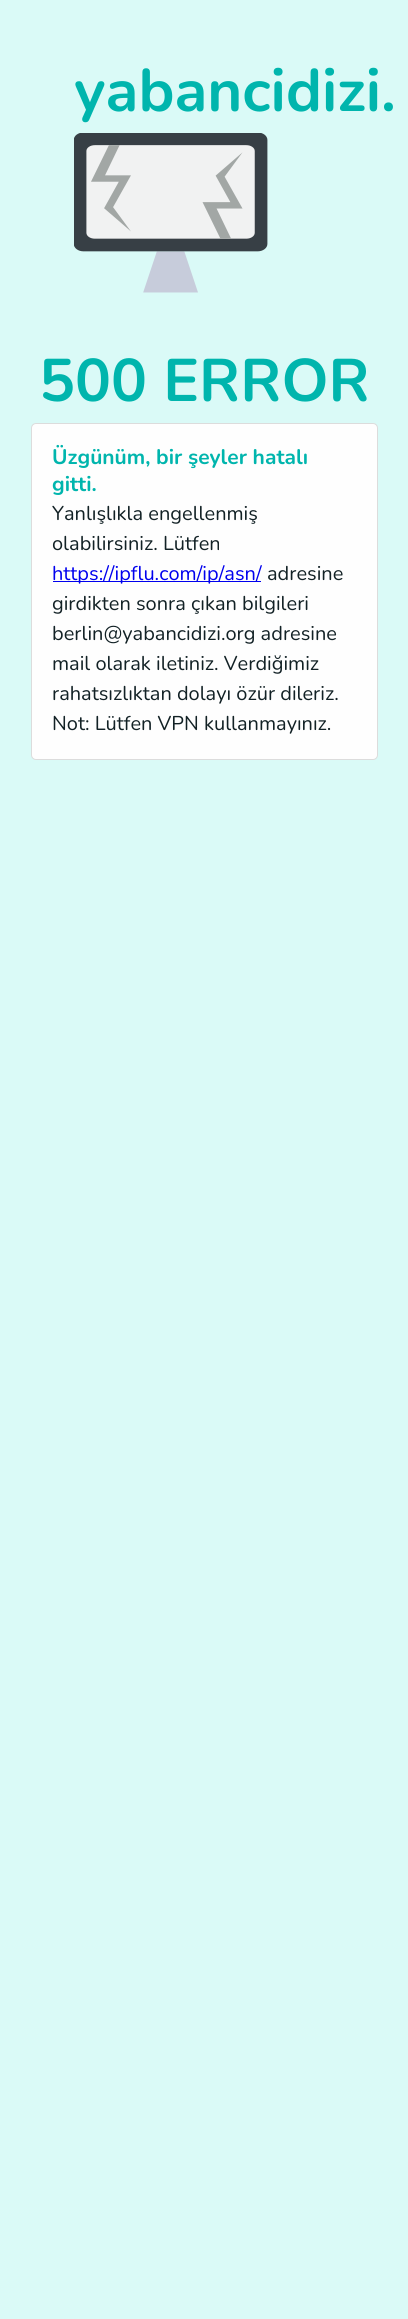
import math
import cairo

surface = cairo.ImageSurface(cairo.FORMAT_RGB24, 408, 2319)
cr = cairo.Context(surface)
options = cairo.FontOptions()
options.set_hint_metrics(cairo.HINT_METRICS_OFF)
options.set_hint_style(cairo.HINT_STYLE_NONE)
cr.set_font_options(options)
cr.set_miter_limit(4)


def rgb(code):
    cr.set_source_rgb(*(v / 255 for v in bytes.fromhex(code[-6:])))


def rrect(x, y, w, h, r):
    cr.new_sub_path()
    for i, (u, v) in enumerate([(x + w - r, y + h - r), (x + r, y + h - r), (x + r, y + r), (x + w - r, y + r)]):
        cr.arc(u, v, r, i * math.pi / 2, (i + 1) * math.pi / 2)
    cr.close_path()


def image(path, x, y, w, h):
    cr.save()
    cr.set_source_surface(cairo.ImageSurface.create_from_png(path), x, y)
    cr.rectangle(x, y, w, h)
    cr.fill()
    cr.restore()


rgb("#dafaf7")
cr.paint()
image("img/1.png", 74, 133, 194, 160)
rgb("#fefefe")
rrect(31.5, 423.5, 346, 336, 4.5)
cr.fill_preserve()
rgb("#dcdcdc")
cr.set_line_width(1)
cr.stroke()
rgb("#0000ee")
cr.rectangle(53, 581, 208, 1)
cr.fill()
cr.select_font_face("Nunito", cairo.FONT_SLANT_NORMAL, cairo.FONT_WEIGHT_BOLD)
cr.set_font_size(60)
rgb("#00b5ad")
cr.move_to(74, 111)
cr.show_text("yabancidizi.")
cr.move_to(39, 401)
cr.show_text("500 ERROR")
cr.set_font_size(21)
cr.move_to(52, 464)
cr.show_text("Üzgünüm, bir şeyler hatalı")
cr.move_to(52, 491)
cr.show_text("gitti.")
cr.select_font_face("Nunito")
cr.set_font_size(20)
rgb("#122125")
cr.move_to(52, 520)
cr.show_text("Yanlışlıkla engellenmiş")
cr.move_to(52, 550)
cr.show_text("olabilirsiniz. Lütfen")
rgb("#0000ee")
cr.move_to(52, 580)
cr.show_text("https://ipflu.com/ip/asn/")
rgb("#122125")
for x, y, s in [
    (267, 580, "adresine"),
    (52, 610, "girdikten sonra çıkan bilgileri"),
    (52, 640, "berlin@yabancidizi.org adresine"),
    (52, 670, "mail olarak iletiniz. Verdiğimiz"),
    (52, 700, "rahatsızlıktan dolayı özür dileriz."),
    (52, 730, "Not: Lütfen VPN kullanmayınız."),
]:
    cr.move_to(x, y)
    cr.show_text(s)
surface.write_to_png("page.png")
